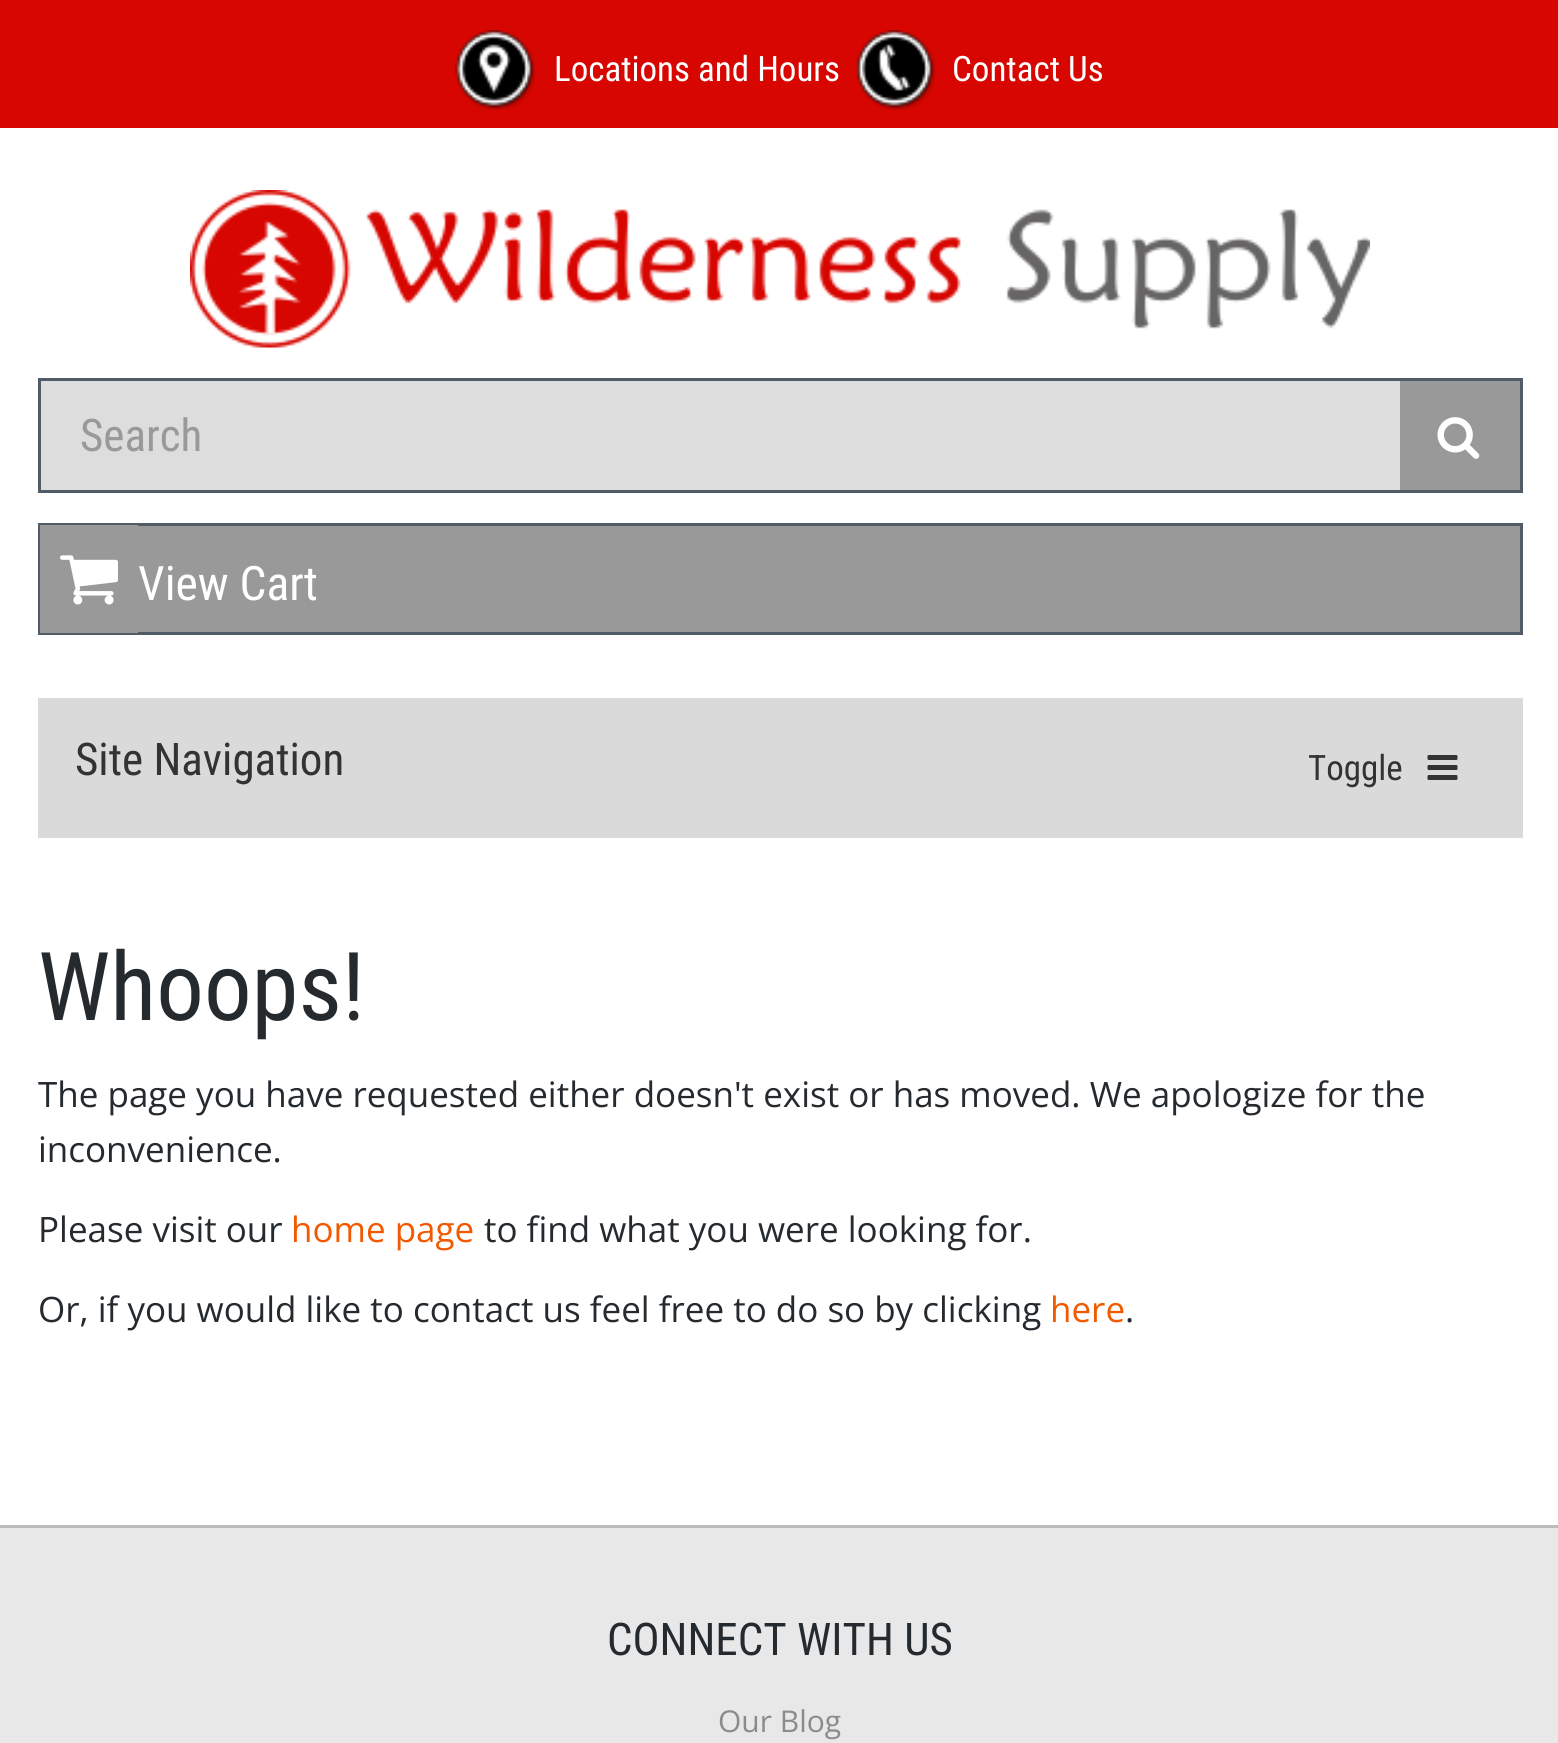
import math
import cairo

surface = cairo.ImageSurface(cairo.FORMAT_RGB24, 1558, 1743)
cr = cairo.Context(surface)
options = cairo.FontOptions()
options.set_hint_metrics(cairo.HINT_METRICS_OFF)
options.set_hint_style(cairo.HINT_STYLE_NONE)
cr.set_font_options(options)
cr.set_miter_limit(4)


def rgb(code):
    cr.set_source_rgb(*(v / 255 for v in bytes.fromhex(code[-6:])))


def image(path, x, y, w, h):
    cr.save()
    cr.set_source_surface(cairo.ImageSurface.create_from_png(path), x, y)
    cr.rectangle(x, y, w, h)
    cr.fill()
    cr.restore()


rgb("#ffffff")
cr.paint()
rgb("#d70600")
cr.rectangle(0, 0, 1558, 128)
cr.fill()
image("img/1.png", 455, 30, 80, 80)
image("img/2.png", 856, 30, 79, 80)
image("img/3.png", 190, 190, 1180, 158)
for x, y, w, h, color in [
    (1400, 381, 120, 109, "#999999"),
    (38, 378, 1485, 3, "#525c66"),
    (1520, 378, 3, 115, "#525c66"),
    (38, 490, 1485, 3, "#525c66"),
]:
    rgb(color)
    cr.rectangle(x, y, w, h)
    cr.fill()
image("img/4.png", 1437, 417, 43, 42)
for x, y, w, h, color in [
    (41, 381, 1359, 109, "#dddddd"),
    (38, 378, 3, 115, "#525c66"),
    (138, 526, 1382, 106, "#999999"),
]:
    rgb(color)
    cr.rectangle(x, y, w, h)
    cr.fill()
cr.rectangle(39.5, 524.5, 1482, 109)
rgb("#525c66")
cr.set_line_width(3)
cr.stroke()
rgb("#999999")
cr.rectangle(40, 525, 98, 108)
cr.fill()
image("img/5.png", 60, 555, 58, 50)
rgb("#dadada")
cr.rectangle(38, 698, 1485, 140)
cr.fill()
image("img/6.png", 1427, 755, 31, 25)
rgb("#e8e8e8")
cr.rectangle(0, 1528, 1558, 215)
cr.fill()
rgb("#bcbcbc")
cr.rectangle(0, 1525, 1558, 3)
cr.fill()
cr.select_font_face("Roboto Condensed")
cr.set_font_size(35)
rgb("#ffffff")
cr.move_to(554, 81)
cr.show_text("Locations and Hours")
cr.move_to(952, 81)
cr.show_text("Contact Us")
cr.set_font_size(45)
rgb("#999999")
cr.move_to(80, 451)
cr.show_text("Search")
cr.set_font_size(47.5)
rgb("#ffffff")
cr.move_to(138, 600)
cr.show_text("View Cart")
cr.set_font_size(45)
rgb("#333333")
cr.move_to(75, 775)
cr.show_text("Site Navigation")
cr.set_font_size(35)
cr.move_to(1308, 780)
cr.show_text("Toggle")
cr.set_font_size(95)
rgb("#252a2f")
cr.move_to(38, 1020)
cr.show_text("Whoops!")
cr.select_font_face("Open Sans")
cr.set_font_size(35)
for x, y, s in [
    (38, 1107, "The page you have requested either doesn't exist or has moved. We apologize for the"),
    (38, 1162, "inconvenience."),
    (38, 1242, "Please visit our"),
]:
    cr.move_to(x, y)
    cr.show_text(s)
rgb("#f25a01")
cr.move_to(291, 1242)
cr.show_text("home page")
rgb("#252a2f")
cr.move_to(484, 1242)
cr.show_text("to find what you were looking for.")
cr.move_to(38, 1322)
cr.show_text("Or, if you would like to contact us feel free to do so by clicking")
rgb("#f25a01")
cr.move_to(1050, 1322)
cr.show_text("here")
rgb("#252a2f")
cr.move_to(1125, 1322)
cr.show_text(".")
cr.select_font_face("Roboto Condensed")
cr.set_font_size(45)
cr.move_to(607, 1655)
cr.show_text("CONNECT WITH US")
cr.select_font_face("Open Sans")
cr.set_font_size(30)
rgb("#8b8b8b")
cr.move_to(718, 1732)
cr.show_text("Our Blog")
surface.write_to_png("page.png")
